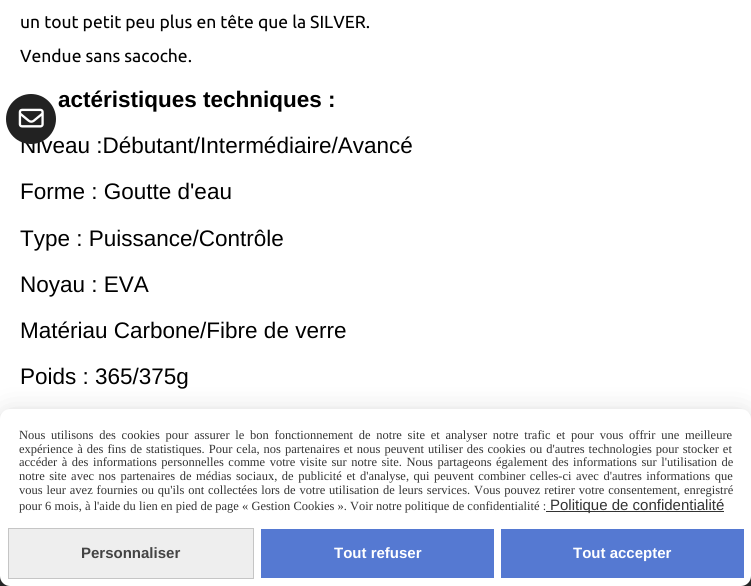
import math
import cairo

surface = cairo.ImageSurface(cairo.FORMAT_RGB24, 751, 586)
cr = cairo.Context(surface)
options = cairo.FontOptions()
options.set_hint_metrics(cairo.HINT_METRICS_OFF)
options.set_hint_style(cairo.HINT_STYLE_NONE)
cr.set_font_options(options)
cr.set_miter_limit(4)


def rgb(code):
    cr.set_source_rgb(*(v / 255 for v in bytes.fromhex(code[-6:])))


def tracked(x, y, s, letter, word):
    cr.move_to(x, y)
    for ch in s:
        cr.show_text(ch)
        cr.rel_move_to(letter + word * (ch == ' '), 0)


def rrect(x, y, w, h, r):
    cr.new_sub_path()
    for i, (u, v) in enumerate([(x + w - r, y + h - r), (x + r, y + h - r), (x + r, y + r), (x + w - r, y + r)]):
        cr.arc(u, v, r, i * math.pi / 2, (i + 1) * math.pi / 2)
    cr.close_path()


def soft_shadow(x, y, w, h, r, blur, alpha):
    cr.push_group_with_content(cairo.CONTENT_ALPHA)
    cr.set_operator(cairo.OPERATOR_SOURCE)
    for i in range(15, -16, -2):
        e = blur * i / 6
        if min(w, h) + 2 * e > 0:
            cr.set_source_rgba(0, 0, 0, alpha * math.erfc((i - 1) / 8.5) / 2)
            rrect(x - e, y - e, w + 2 * e, h + 2 * e, max(0, min(r + e + blur * .6, min(w, h) / 2 + e)))
            cr.fill()
    cr.mask(cr.pop_group())


def image(path, x, y, w, h):
    cr.save()
    cr.set_source_surface(cairo.ImageSurface.create_from_png(path), x, y)
    cr.rectangle(x, y, w, h)
    cr.fill()
    cr.restore()


rgb("#ffffff")
cr.paint()
rgb("#111111")
cr.rectangle(0, 576, 751, 10)
cr.fill()
image("img/1.png", 0, 576, 751, 10)
rgb("#000000")
soft_shadow(0, 411, 751, 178, 10, 4, 0.05)
soft_shadow(0, 414, 751, 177, 10, 15, 0.15)
rgb("#ffffff")
rrect(0, 409, 751, 177, 10)
cr.fill()
rgb("#333333")
cr.rectangle(546, 511, 178, 1)
cr.fill()
rgb("#eeeeee")
cr.rectangle(8.5, 528.5, 245, 50)
cr.fill_preserve()
rgb("#c5c5c5")
cr.set_line_width(1)
cr.stroke()
rgb("#5579d2")
cr.rectangle(261, 529, 233, 49)
cr.fill()
cr.rectangle(501, 529, 243, 49)
cr.fill()
cr.select_font_face("Ubuntu")
cr.set_font_size(17.5)
rgb("#000000")
cr.move_to(20, 28)
cr.show_text("un tout petit peu plus en tête que la SILVER.")
cr.move_to(20, 62)
cr.show_text("Vendue sans sacoche.")
cr.select_font_face("Liberation Sans", cairo.FONT_SLANT_NORMAL, cairo.FONT_WEIGHT_BOLD)
cr.set_font_size(22.5)
cr.move_to(58, 107)
cr.show_text("actéristiques techniques :")
cr.select_font_face("Liberation Sans")
for x, y, s in [
    (20, 153, "Niveau :Débutant/Intermédiaire/Avancé"),
    (20, 199, "Forme : Goutte d'eau"),
    (20, 246, "Type : Puissance/Contrôle"),
    (20, 292, "Noyau : EVA"),
    (20, 338, "Matériau Carbone/Fibre de verre"),
    (20, 384, "Poids : 365/375g"),
]:
    cr.move_to(x, y)
    cr.show_text(s)
rgb("#222222")
cr.new_path()
cr.arc(31, 119, 25, 0, 2 * math.pi)
cr.fill()
image("img/2.png", 18, 108, 26, 20)
cr.select_font_face("Liberation Serif")
cr.set_font_size(12.5)
rgb("#333333")
tracked(19, 439, "Nous utilisons des cookies pour assurer le bon fonctionnement de notre site et analyser notre trafic et pour vous offrir une meilleure", 0, 2.6)
tracked(19, 453, "expérience à des fins de statistiques. Pour cela, nos partenaires et nous peuvent utiliser des cookies ou d'autres technologies pour stocker et", 0, 0.9)
tracked(19, 466, "accéder à des informations personnelles comme votre visite sur notre site. Nous partageons également des informations sur l'utilisation de", 0, 1.4)
tracked(19, 480, "notre site avec nos partenaires de médias sociaux, de publicité et d'analyse, qui peuvent combiner celles-ci avec d'autres informations que", 0, 1.4)
tracked(19, 494, "vous leur avez fournies ou qu'ils ont collectées lors de votre utilisation de leurs services. Vous pouvez retirer votre consentement, enregistré", 0, 0.75)
cr.move_to(19, 510)
cr.show_text("pour 6 mois, à l'aide du lien en pied de page « Gestion Cookies ». Voir notre politique de confidentialité :")
cr.select_font_face("Liberation Sans")
cr.set_font_size(15)
cr.move_to(550, 510)
cr.show_text("Politique de confidentialité")
cr.select_font_face("Liberation Sans", cairo.FONT_SLANT_NORMAL, cairo.FONT_WEIGHT_BOLD)
rgb("#444444")
cr.move_to(81, 558)
cr.show_text("Personnaliser")
rgb("#ffffff")
cr.move_to(334, 558)
cr.show_text("Tout refuser")
cr.move_to(573, 558)
cr.show_text("Tout accepter")
surface.write_to_png("page.png")
